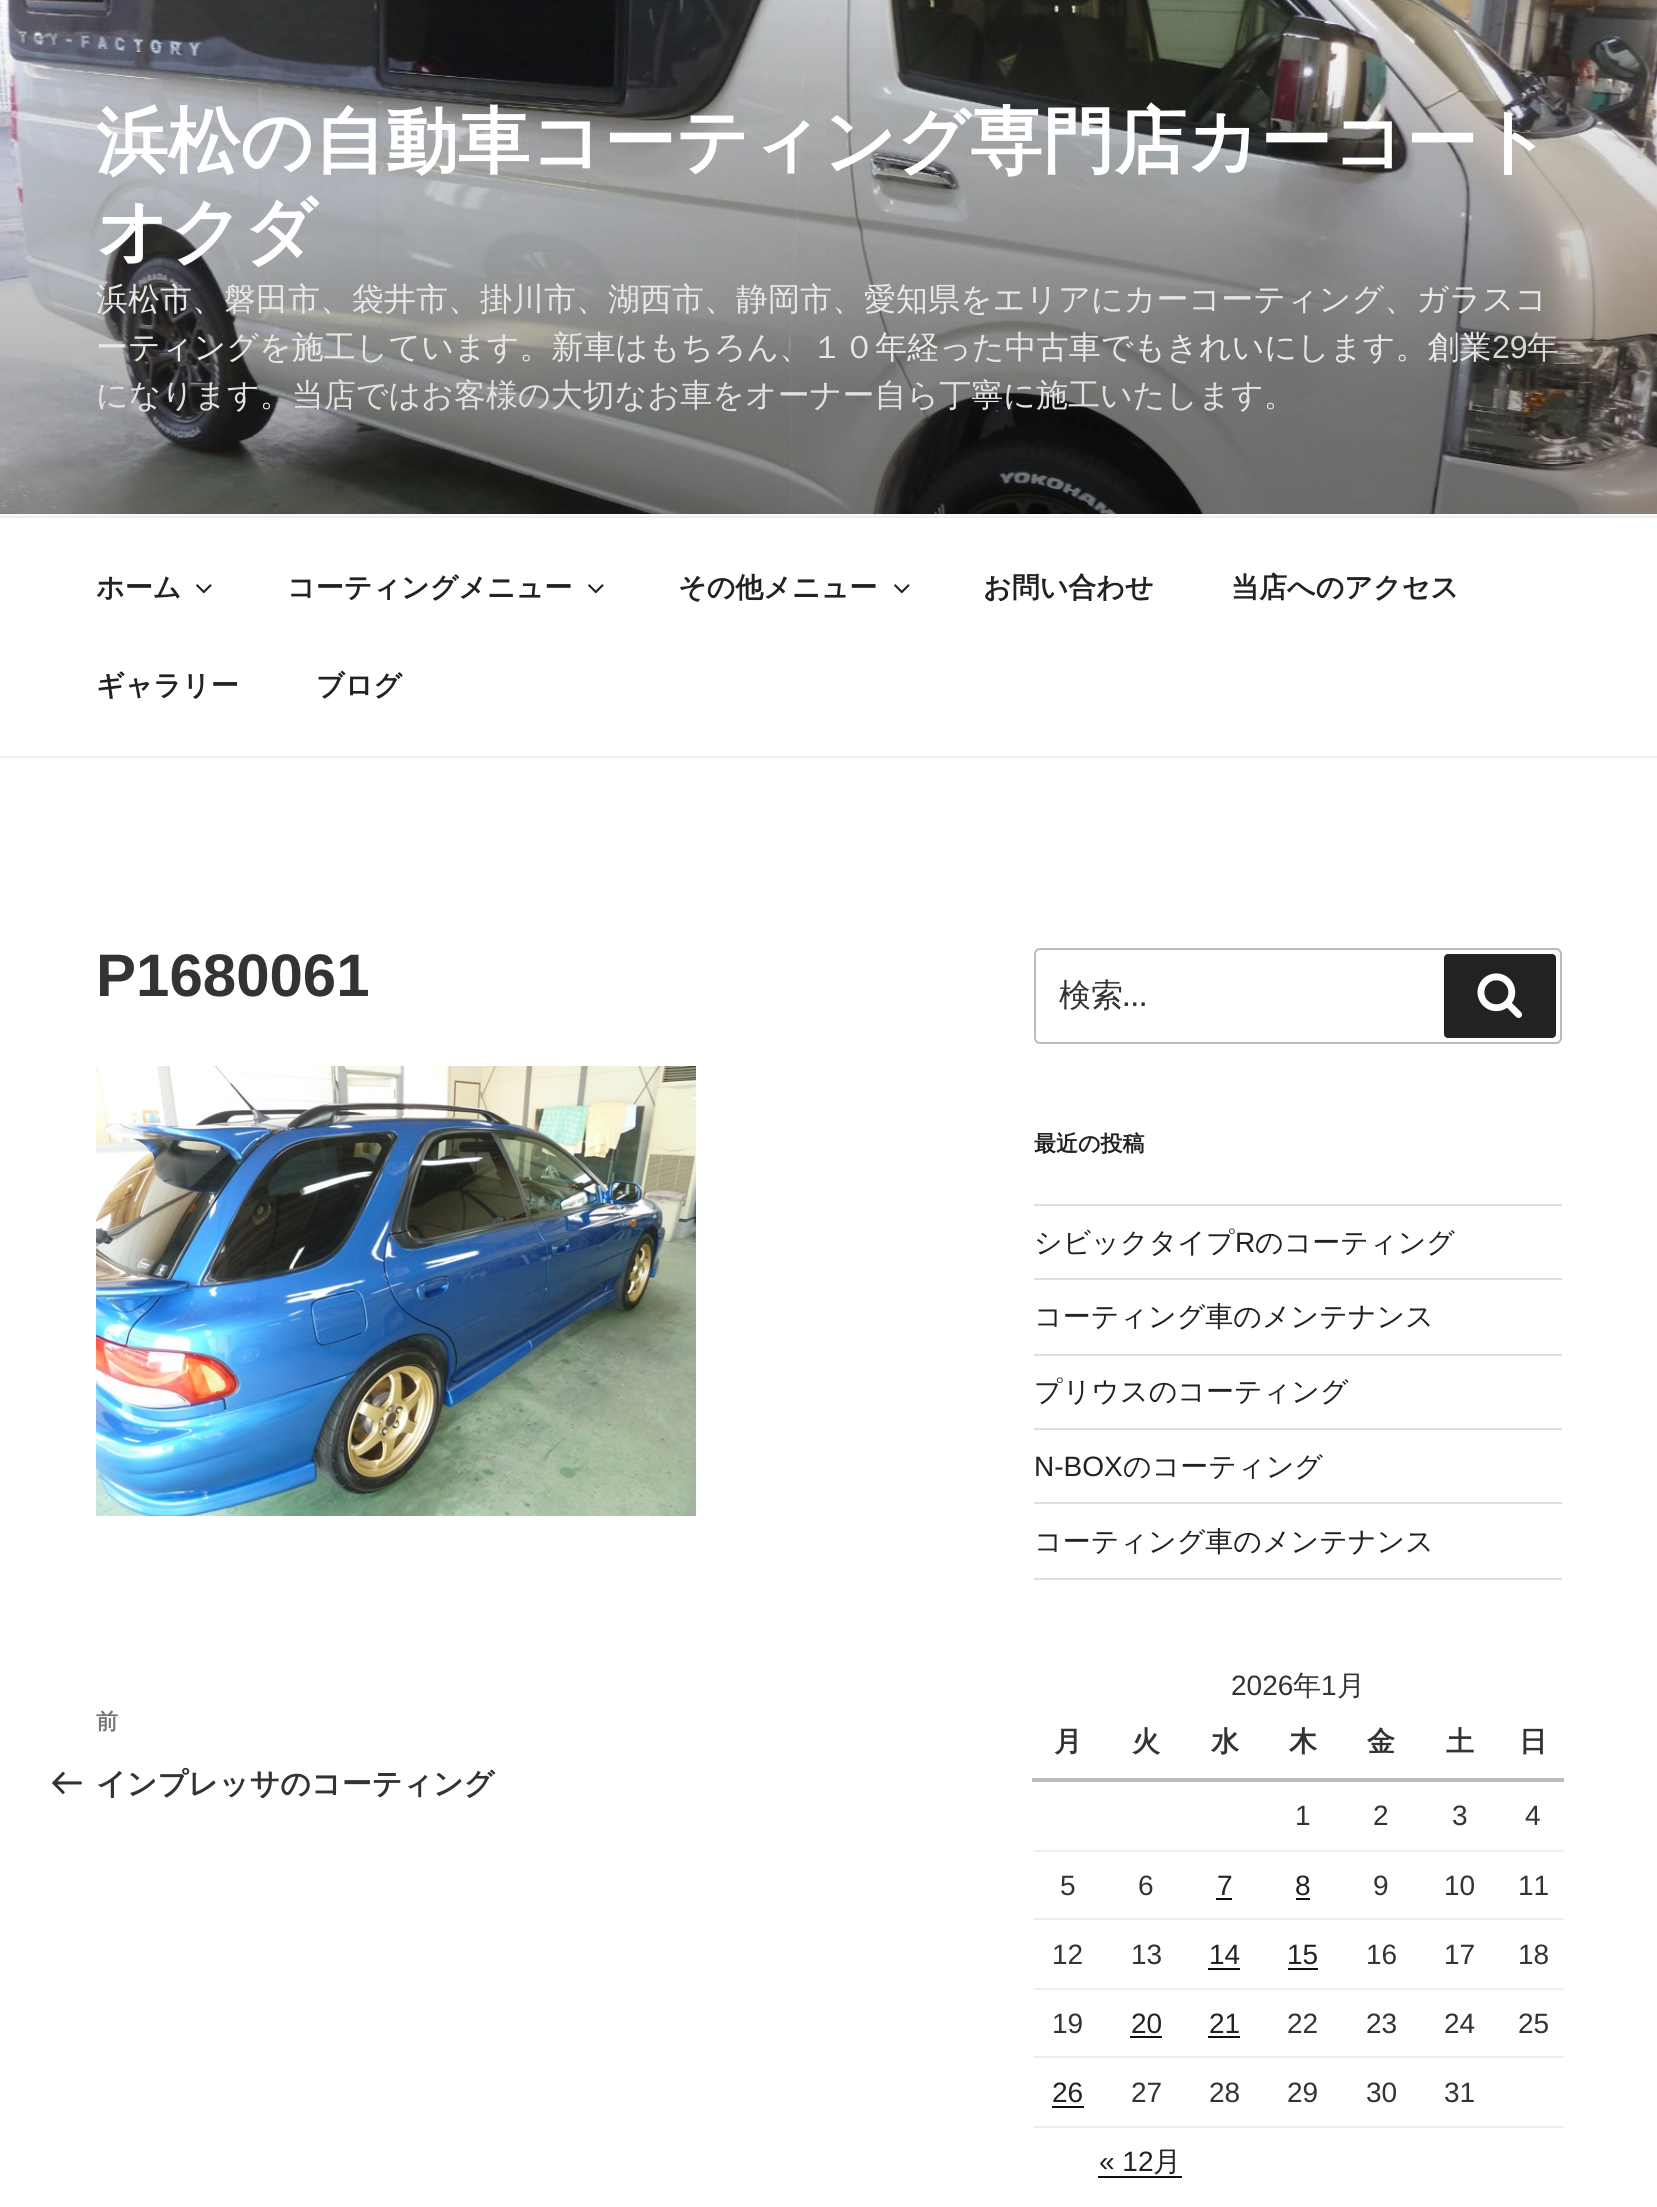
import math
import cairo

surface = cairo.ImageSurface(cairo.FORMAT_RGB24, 1657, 2207)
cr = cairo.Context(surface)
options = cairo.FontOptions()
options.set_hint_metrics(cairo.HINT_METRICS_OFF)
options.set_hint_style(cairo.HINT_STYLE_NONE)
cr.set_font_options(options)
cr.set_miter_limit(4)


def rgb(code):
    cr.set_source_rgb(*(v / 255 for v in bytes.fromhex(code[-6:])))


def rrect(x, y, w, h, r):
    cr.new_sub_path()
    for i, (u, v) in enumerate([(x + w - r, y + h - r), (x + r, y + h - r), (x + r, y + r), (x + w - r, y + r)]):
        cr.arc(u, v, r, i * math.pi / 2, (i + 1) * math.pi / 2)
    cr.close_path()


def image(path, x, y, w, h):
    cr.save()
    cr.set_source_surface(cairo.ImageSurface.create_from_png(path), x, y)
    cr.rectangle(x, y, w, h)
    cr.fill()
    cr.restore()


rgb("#ffffff")
cr.paint()
rgb("#fafafa")
cr.rectangle(0, 514, 1657, 2)
cr.fill()
image("img/1.png", 0, 0, 1657, 514)
rgb("#eeeeee")
cr.rectangle(0, 516, 1657, 2)
cr.fill()
cr.rectangle(0, 756, 1657, 2)
cr.fill()
image("img/2.png", 196, 584, 16, 10)
image("img/2.png", 588, 584, 16, 10)
image("img/2.png", 894, 584, 16, 10)
image("img/3.png", 96, 1066, 600, 450)
image("img/4.png", 52, 1771, 30, 24)
rrect(1035, 949, 526, 94, 5)
rgb("#bbbbbb")
cr.stroke()
rgb("#222222")
rrect(1444, 954, 112, 84, 4)
cr.fill()
image("img/5.png", 1477, 973, 46, 45)
for x, y, w, h, color in [
    (1034, 1204, 528, 2, "#dddddd"),
    (1034, 1278, 528, 2, "#dddddd"),
    (1034, 1354, 528, 2, "#dddddd"),
    (1034, 1428, 528, 2, "#dddddd"),
    (1034, 1502, 528, 2, "#dddddd"),
    (1034, 1578, 528, 2, "#dddddd"),
    (1032, 1778, 532, 4, "#bbbbbb"),
    (1034, 1850, 530, 2, "#eeeeee"),
    (1034, 1918, 530, 2, "#eeeeee"),
    (1216, 1898, 16, 2, "#0f0f0f"),
    (1296, 1898, 14, 2, "#0f0f0f"),
    (1034, 1988, 530, 2, "#eeeeee"),
    (1208, 1968, 32, 2, "#0f0f0f"),
    (1288, 1968, 30, 2, "#0f0f0f"),
    (1034, 2056, 530, 2, "#eeeeee"),
    (1130, 2036, 32, 2, "#0f0f0f"),
    (1208, 2036, 32, 2, "#0f0f0f"),
    (1034, 2126, 530, 2, "#eeeeee"),
    (1052, 2106, 32, 2, "#0f0f0f"),
    (1098, 2176, 84, 2, "#0f0f0f"),
]:
    rgb(color)
    cr.rectangle(x, y, w, h)
    cr.fill()
cr.select_font_face("WenQuanYi Zen Hei", cairo.FONT_SLANT_NORMAL, cairo.FONT_WEIGHT_BOLD)
cr.set_font_size(72)
rgb("#ffffff")
cr.move_to(96, 166)
cr.show_text("浜松の自動車コーティング専門店カーコート")
cr.move_to(96, 256)
cr.show_text("オクダ")
cr.select_font_face("WenQuanYi Zen Hei Medium")
cr.set_font_size(32)
rgb("#e7e7e7")
cr.move_to(96, 310)
cr.show_text("浜松市、磐田市、袋井市、掛川市、湖西市、静岡市、愛知県をエリアにカーコーティング、ガラスコ")
cr.move_to(96, 358)
cr.show_text("ーティングを施工しています。新車はもちろん、１０年経った中古車でもきれいにします。創業")
cr.select_font_face("Liberation Sans")
rgb("#d6d6d5")
cr.move_to(1492, 358)
cr.show_text("29")
cr.select_font_face("WenQuanYi Zen Hei Medium")
cr.move_to(1527, 358)
cr.show_text("年")
rgb("#e1e1e1")
cr.move_to(96, 406)
cr.show_text("になります。当店ではお客様の大切なお車をオーナー自ら丁寧に施工いたします。")
cr.select_font_face("WenQuanYi Zen Hei", cairo.FONT_SLANT_NORMAL, cairo.FONT_WEIGHT_BOLD)
cr.set_font_size(28)
rgb("#222222")
for x, y, s in [
    (96, 597, "ホーム"),
    (287, 597, "コーティングメニュー"),
    (678, 597, "その他メニュー"),
    (983, 597, "お問い合わせ"),
    (1231, 597, "当店へのアクセス"),
    (96, 695, "ギャラリー"),
    (316, 695, "ブログ"),
]:
    cr.move_to(x, y)
    cr.show_text(s)
cr.select_font_face("Liberation Sans", cairo.FONT_SLANT_NORMAL, cairo.FONT_WEIGHT_BOLD)
cr.set_font_size(60)
rgb("#333333")
cr.move_to(96, 996)
cr.show_text("P1680061")
cr.select_font_face("WenQuanYi Zen Hei", cairo.FONT_SLANT_NORMAL, cairo.FONT_WEIGHT_BOLD)
cr.set_font_size(22)
rgb("#767676")
cr.move_to(96, 1729)
cr.show_text("前")
cr.set_font_size(30)
rgb("#333333")
cr.move_to(96, 1794)
cr.show_text("インプレッサのコーティング")
cr.select_font_face("WenQuanYi Zen Hei Medium")
cr.set_font_size(32)
cr.move_to(1059, 1006)
cr.show_text("検索")
cr.select_font_face("Libre Franklin")
cr.move_to(1123, 1006)
cr.show_text("…")
cr.select_font_face("WenQuanYi Zen Hei", cairo.FONT_SLANT_NORMAL, cairo.FONT_WEIGHT_BOLD)
cr.set_font_size(22)
rgb("#222222")
cr.move_to(1034, 1151)
cr.show_text("最近の投稿")
cr.select_font_face("WenQuanYi Zen Hei Medium")
cr.set_font_size(28)
cr.move_to(1034, 1252)
cr.show_text("シビックタイプ")
cr.select_font_face("Liberation Sans")
cr.move_to(1235, 1252)
cr.show_text("R")
cr.select_font_face("WenQuanYi Zen Hei Medium")
for x, y, s in [
    (1255, 1252, "のコーティング"),
    (1034, 1326, "コーティング車のメンテナンス"),
    (1034, 1401, "プリウスのコーティング"),
]:
    cr.move_to(x, y)
    cr.show_text(s)
cr.select_font_face("Liberation Sans")
cr.move_to(1034, 1476)
cr.show_text("N-BOX")
cr.select_font_face("WenQuanYi Zen Hei Medium")
cr.move_to(1123, 1476)
cr.show_text("のコーティング")
cr.move_to(1034, 1551)
cr.show_text("コーティング車のメンテナンス")
cr.select_font_face("Liberation Sans")
rgb("#333333")
cr.move_to(1231, 1695)
cr.show_text("2026")
cr.select_font_face("WenQuanYi Zen Hei Medium")
cr.move_to(1293, 1695)
cr.show_text("年")
cr.select_font_face("Liberation Sans")
cr.move_to(1321, 1695)
cr.show_text("1")
cr.select_font_face("WenQuanYi Zen Hei Medium")
cr.move_to(1337, 1695)
cr.show_text("月")
cr.select_font_face("WenQuanYi Zen Hei", cairo.FONT_SLANT_NORMAL, cairo.FONT_WEIGHT_BOLD)
for x, y, s in [
    (1054, 1751, "月"),
    (1132, 1751, "火"),
    (1211, 1751, "水"),
    (1289, 1751, "木"),
    (1367, 1751, "金"),
    (1446, 1751, "土"),
    (1519, 1751, "日"),
]:
    cr.move_to(x, y)
    cr.show_text(s)
cr.select_font_face("Liberation Sans")
for x, y, s in [
    (1295, 1825, "1"),
    (1373, 1825, "2"),
    (1452, 1825, "3"),
    (1525, 1825, "4"),
    (1060, 1895, "5"),
    (1138, 1895, "6"),
]:
    cr.move_to(x, y)
    cr.show_text(s)
rgb("#222222")
cr.move_to(1217, 1895)
cr.show_text("7")
cr.move_to(1295, 1895)
cr.show_text("8")
rgb("#333333")
for x, y, s in [
    (1373, 1895, "9"),
    (1444, 1895, "10"),
    (1518, 1895, "11"),
    (1052, 1964, "12"),
    (1131, 1964, "13"),
]:
    cr.move_to(x, y)
    cr.show_text(s)
rgb("#222222")
cr.move_to(1209, 1964)
cr.show_text("14")
cr.move_to(1287, 1964)
cr.show_text("15")
rgb("#333333")
for x, y, s in [
    (1366, 1964, "16"),
    (1444, 1964, "17"),
    (1518, 1964, "18"),
    (1052, 2033, "19"),
]:
    cr.move_to(x, y)
    cr.show_text(s)
rgb("#222222")
cr.move_to(1131, 2033)
cr.show_text("20")
cr.move_to(1209, 2033)
cr.show_text("21")
rgb("#333333")
for x, y, s in [
    (1287, 2033, "22"),
    (1366, 2033, "23"),
    (1444, 2033, "24"),
    (1518, 2033, "25"),
]:
    cr.move_to(x, y)
    cr.show_text(s)
rgb("#222222")
cr.move_to(1052, 2102)
cr.show_text("26")
rgb("#333333")
for x, y, s in [
    (1131, 2102, "27"),
    (1209, 2102, "28"),
    (1287, 2102, "29"),
    (1366, 2102, "30"),
    (1444, 2102, "31"),
]:
    cr.move_to(x, y)
    cr.show_text(s)
rgb("#222222")
cr.move_to(1099, 2171)
cr.show_text("« 12")
cr.select_font_face("WenQuanYi Zen Hei Medium")
cr.move_to(1153, 2171)
cr.show_text("月")
surface.write_to_png("page.png")
